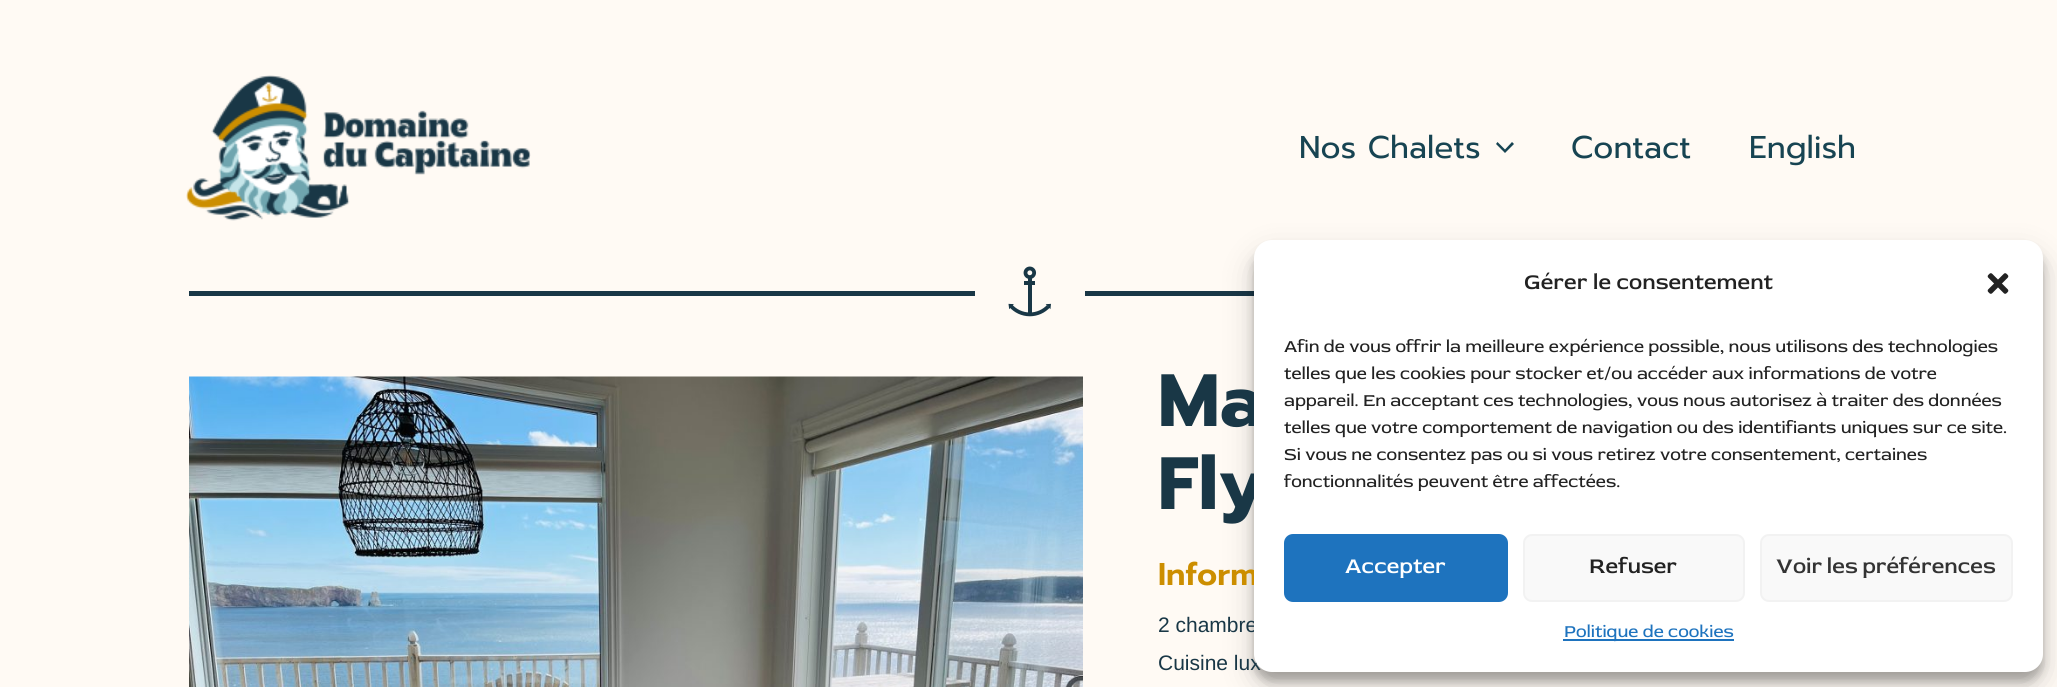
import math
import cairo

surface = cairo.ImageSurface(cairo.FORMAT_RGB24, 2057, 687)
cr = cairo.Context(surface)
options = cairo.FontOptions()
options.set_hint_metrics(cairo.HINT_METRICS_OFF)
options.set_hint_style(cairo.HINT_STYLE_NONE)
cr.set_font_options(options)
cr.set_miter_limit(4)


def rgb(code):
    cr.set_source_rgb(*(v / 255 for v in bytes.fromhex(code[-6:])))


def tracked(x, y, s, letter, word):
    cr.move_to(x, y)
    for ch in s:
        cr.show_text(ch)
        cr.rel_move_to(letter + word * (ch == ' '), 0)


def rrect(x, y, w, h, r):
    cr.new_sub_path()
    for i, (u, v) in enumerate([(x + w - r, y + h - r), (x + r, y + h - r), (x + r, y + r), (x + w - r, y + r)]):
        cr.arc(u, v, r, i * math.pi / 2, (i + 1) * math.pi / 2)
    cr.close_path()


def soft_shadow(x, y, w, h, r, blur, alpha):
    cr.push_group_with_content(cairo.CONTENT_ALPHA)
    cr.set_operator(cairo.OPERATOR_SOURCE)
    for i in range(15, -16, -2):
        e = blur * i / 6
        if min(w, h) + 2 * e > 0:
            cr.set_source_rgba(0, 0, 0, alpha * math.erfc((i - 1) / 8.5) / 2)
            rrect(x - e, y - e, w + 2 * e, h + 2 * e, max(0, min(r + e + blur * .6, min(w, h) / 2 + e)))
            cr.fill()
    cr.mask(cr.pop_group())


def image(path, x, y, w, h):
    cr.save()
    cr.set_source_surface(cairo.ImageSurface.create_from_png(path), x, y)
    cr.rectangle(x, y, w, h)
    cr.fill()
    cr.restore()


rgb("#fffaf4")
cr.paint()
image("img/1.png", 186, 75, 345, 146)
rgb("#174452")
cr.new_path()
cr.move_to(1496, 144)
cr.line_to(1505, 153)
cr.line_to(1514, 144)
cr.line_to(1512, 142)
cr.line_to(1505, 149.5)
cr.line_to(1497.5, 142)
cr.close_path()
cr.fill()
rgb("#193746")
cr.rectangle(189, 291, 786, 5)
cr.fill()
image("img/2.png", 1008, 266, 43, 51)
cr.rectangle(1085, 291, 169, 5)
cr.fill()
image("img/3.png", 189, 376, 894, 311)
rgb("#000000")
soft_shadow(1254, 249, 789, 432, 18, 4.5, 0.23)
soft_shadow(1254, 255, 789, 432, 18, 15, 0.19)
cr.select_font_face("Prompt")
cr.set_font_size(31.5)
rgb("#174452")
for x, y, s in [
    (1299, 158, "Nos Chalets"),
    (1571, 158, "Contact"),
    (1749, 158, "English"),
]:
    cr.move_to(x, y)
    cr.show_text(s)
cr.select_font_face("Prompt", cairo.FONT_SLANT_NORMAL, cairo.FONT_WEIGHT_BOLD)
cr.set_font_size(74)
rgb("#193746")
cr.move_to(1158, 426)
cr.show_text("Ma")
cr.move_to(1158, 509)
cr.show_text("Fly")
cr.select_font_face("Prompt SemiBold")
cr.set_font_size(31.5)
rgb("#cc8e00")
cr.move_to(1158, 585)
cr.show_text("Inform")
cr.select_font_face("Liberation Sans")
cr.set_font_size(21)
rgb("#193746")
cr.move_to(1158, 632)
cr.show_text("2 chambre")
cr.move_to(1158, 670)
cr.show_text("Cuisine lux")
rgb("#ffffff")
rrect(1254, 240, 789, 432, 18)
cr.fill()
cr.select_font_face("Red Rose Medium")
cr.set_font_size(22.5)
rgb("#222222")
cr.move_to(1524, 289)
cr.show_text("Gérer le consentement")
image("img/4.png", 1987, 273, 22, 21)
cr.select_font_face("Red Rose")
cr.set_font_size(18)
for x, y, s in [
    (1284, 352, "Afin de vous offrir la meilleure expérience possible, nous utilisons des technologies"),
    (1284, 379, "telles que les cookies pour stocker et/ou accéder aux informations de votre"),
    (1284, 406, "appareil. En acceptant ces technologies, vous nous autorisez à traiter des données"),
    (1284, 433, "telles que votre comportement de navigation ou des identifiants uniques sur ce site."),
    (1284, 460, "Si vous ne consentez pas ou si vous retirez votre consentement, certaines"),
    (1284, 487, "fonctionnalités peuvent être affectées."),
]:
    cr.move_to(x, y)
    cr.show_text(s)
rgb("#1e73be")
rrect(1285, 535, 222, 66, 8)
cr.fill_preserve()
cr.stroke()
cr.select_font_face("Red Rose Medium")
cr.set_font_size(22.5)
rgb("#ffffff")
cr.move_to(1345, 573)
cr.show_text("Accepter")
rgb("#f9f9f9")
rrect(1524, 535, 220, 66, 8)
cr.fill_preserve()
rgb("#f2f2f2")
cr.stroke()
rgb("#222222")
cr.move_to(1589, 573)
cr.show_text("Refuser")
rgb("#f9f9f9")
rrect(1761, 535, 251, 66, 8)
cr.fill_preserve()
rgb("#f2f2f2")
cr.stroke()
rgb("#333333")
tracked(1776, 573, "Voir les préférences", 0, -1)
rgb("#1e73be")
cr.rectangle(1563, 639, 171, 2)
cr.fill()
cr.select_font_face("Red Rose")
cr.set_font_size(18)
cr.move_to(1564, 637)
cr.show_text("Politique de cookies")
surface.write_to_png("page.png")
